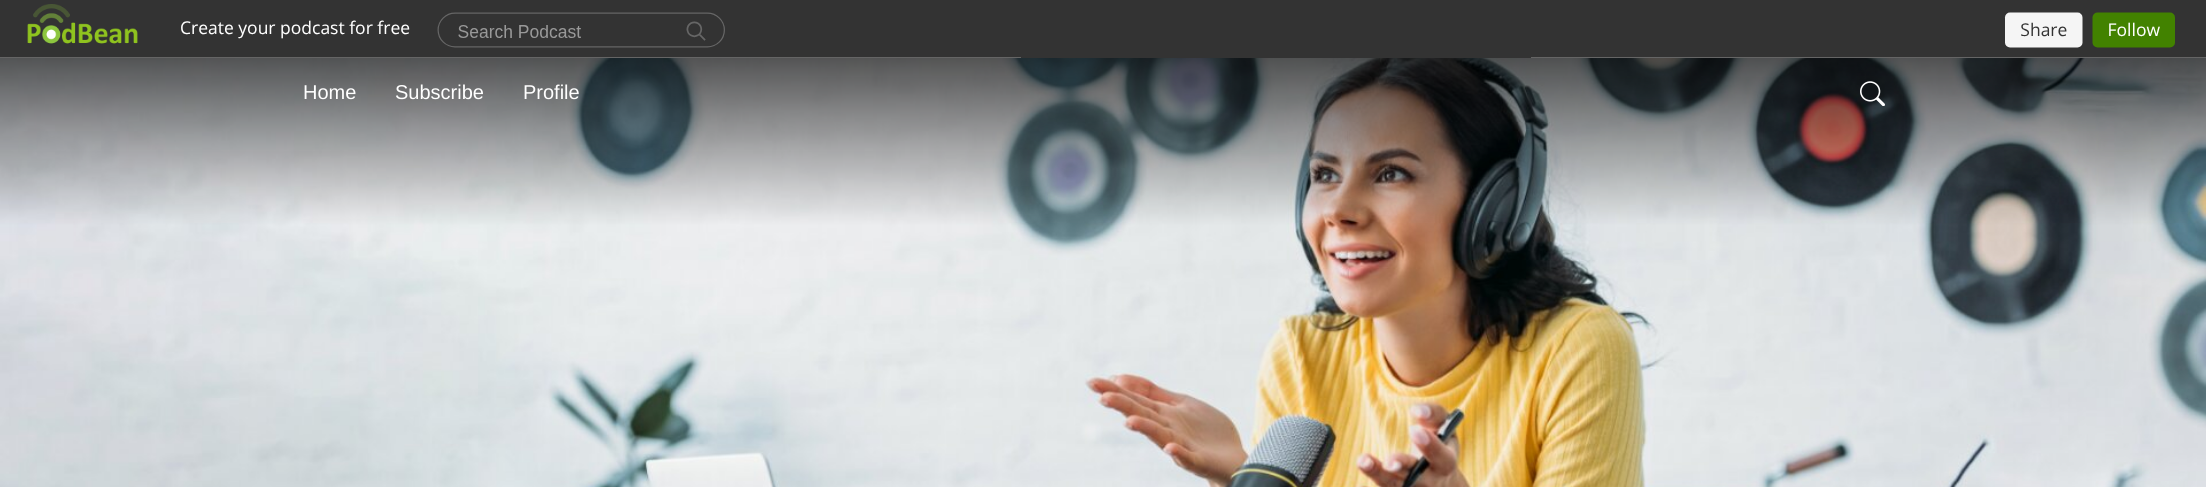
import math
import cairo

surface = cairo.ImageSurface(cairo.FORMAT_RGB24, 2206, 487)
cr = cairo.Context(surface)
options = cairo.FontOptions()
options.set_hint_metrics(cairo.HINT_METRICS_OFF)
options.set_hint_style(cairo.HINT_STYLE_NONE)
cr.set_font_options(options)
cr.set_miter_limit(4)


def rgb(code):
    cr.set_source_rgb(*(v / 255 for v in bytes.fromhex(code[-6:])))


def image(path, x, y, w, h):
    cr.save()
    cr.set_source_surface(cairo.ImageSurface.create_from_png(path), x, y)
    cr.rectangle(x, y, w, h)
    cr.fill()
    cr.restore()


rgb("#ffffff")
cr.paint()
rgb("#333333")
cr.rectangle(0, 0, 2206, 4)
cr.fill()
image("img/1.png", 0, 4, 2206, 54)
image("img/2.png", 0, 58, 2206, 429)
image("img/3.png", 1860, 81, 25, 25)
cr.select_font_face("Liberation Sans")
cr.set_font_size(20)
rgb("#ffffff")
for x, y, s in [
    (303, 99, "Home"),
    (395, 99, "Subscribe"),
    (523, 99, "Profile"),
]:
    cr.move_to(x, y)
    cr.show_text(s)
surface.write_to_png("page.png")
